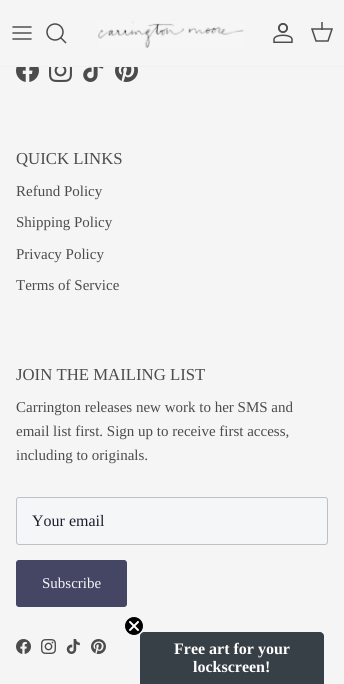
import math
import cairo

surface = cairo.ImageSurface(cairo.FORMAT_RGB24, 344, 684)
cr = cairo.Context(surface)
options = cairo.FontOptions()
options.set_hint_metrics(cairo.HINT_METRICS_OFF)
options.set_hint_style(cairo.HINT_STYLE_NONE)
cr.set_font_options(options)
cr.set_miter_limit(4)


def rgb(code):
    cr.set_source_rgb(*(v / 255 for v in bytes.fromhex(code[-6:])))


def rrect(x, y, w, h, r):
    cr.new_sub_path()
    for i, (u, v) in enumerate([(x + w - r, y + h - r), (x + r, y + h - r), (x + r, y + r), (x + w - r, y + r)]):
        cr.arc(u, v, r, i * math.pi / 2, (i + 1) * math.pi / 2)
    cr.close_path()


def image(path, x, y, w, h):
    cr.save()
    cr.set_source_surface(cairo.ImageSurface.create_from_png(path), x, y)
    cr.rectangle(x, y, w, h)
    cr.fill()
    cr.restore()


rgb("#f5f5f5")
cr.paint()
rgb("#f0f0f0")
cr.rectangle(0, 66, 344, 1)
cr.fill()
cr.new_path()
cr.move_to(13, 33)
cr.line_to(31, 33)
cr.move_to(13, 27)
cr.line_to(31, 27)
cr.move_to(13, 39)
cr.line_to(31, 39)
rgb("#4c4c4c")
cr.set_line_width(1.5)
cr.set_line_cap(cairo.LINE_CAP_ROUND)
cr.set_line_join(cairo.LINE_JOIN_ROUND)
cr.stroke()
cr.arc(55, 32, 8, 0, 2 * math.pi)
cr.set_line_cap(cairo.LINE_CAP_BUTT)
cr.set_line_join(cairo.LINE_JOIN_MITER)
cr.stroke()
cr.new_path()
cr.move_to(61, 38)
cr.line_to(65.5, 42.5)
cr.set_line_cap(cairo.LINE_CAP_SQUARE)
cr.stroke()
image("img/1.png", 98, 21, 146, 27)
image("img/2.png", 273, 23, 20, 20)
cr.new_path()
cr.move_to(312, 29)
cr.line_to(332, 29)
cr.line_to(328, 41)
cr.line_to(316, 41)
cr.close_path()
cr.set_line_cap(cairo.LINE_CAP_BUTT)
cr.stroke()
cr.set_source_rgba(0.298, 0.298, 0.298, 0.75)
cr.rectangle(321, 22, 2, 8)
cr.fill()
image("img/3.png", 16, 67, 23, 15)
image("img/4.png", 49, 67, 23, 15)
image("img/5.png", 83, 67, 21, 15)
image("img/6.png", 115, 67, 23, 15)
rgb("#f4f6f8")
rrect(16.5, 497.5, 311, 47, 2.5)
cr.fill_preserve()
rgb("#bfc0c5")
cr.set_line_width(1)
cr.stroke()
rgb("#454564")
rrect(16.5, 560.5, 110, 46, 2.5)
cr.fill_preserve()
cr.stroke()
image("img/7.png", 16, 639, 15, 15)
image("img/8.png", 41, 639, 15, 15)
image("img/9.png", 66, 639, 14, 15)
image("img/10.png", 91, 639, 15, 15)
rgb("#373f47")
cr.new_path()
cr.move_to(144, 632)
cr.line_to(320, 632)
cr.curve_to(322, 632, 324, 634, 324, 636)
cr.line_to(324, 684)
cr.line_to(140, 684)
cr.line_to(140, 636)
cr.curve_to(140, 634, 142, 632, 144, 632)
cr.close_path()
cr.fill()
image("img/11.png", 124, 616, 20, 20)
cr.select_font_face("Liberation Serif")
cr.set_font_size(16.75)
rgb("#4c4c4c")
cr.move_to(16, 164)
cr.show_text("QUICK LINKS")
cr.set_font_size(15)
for x, y, s in [
    (16, 196, "Refund Policy"),
    (16, 227, "Shipping Policy"),
    (16, 259, "Privacy Policy"),
    (16, 290, "Terms of Service"),
]:
    cr.move_to(x, y)
    cr.show_text(s)
cr.set_font_size(16.75)
cr.move_to(16, 380)
cr.show_text("JOIN THE MAILING LIST")
cr.set_font_size(15)
for x, y, s in [
    (16, 412, "Carrington releases new work to her SMS and"),
    (16, 436, "email list first. Sign up to receive first access,"),
    (16, 460, "including to originals."),
]:
    cr.move_to(x, y)
    cr.show_text(s)
cr.set_font_size(16)
rgb("#1f1c2c")
cr.move_to(32, 526)
cr.show_text("Your email")
cr.set_font_size(15)
rgb("#f4f6f8")
cr.move_to(42, 588)
cr.show_text("Subscribe")
cr.select_font_face("Liberation Serif", cairo.FONT_SLANT_NORMAL, cairo.FONT_WEIGHT_BOLD)
cr.set_font_size(16)
rgb("#ffffff")
cr.move_to(174, 654)
cr.show_text("Free art for your")
cr.move_to(193, 672)
cr.show_text("lockscreen!")
surface.write_to_png("page.png")
